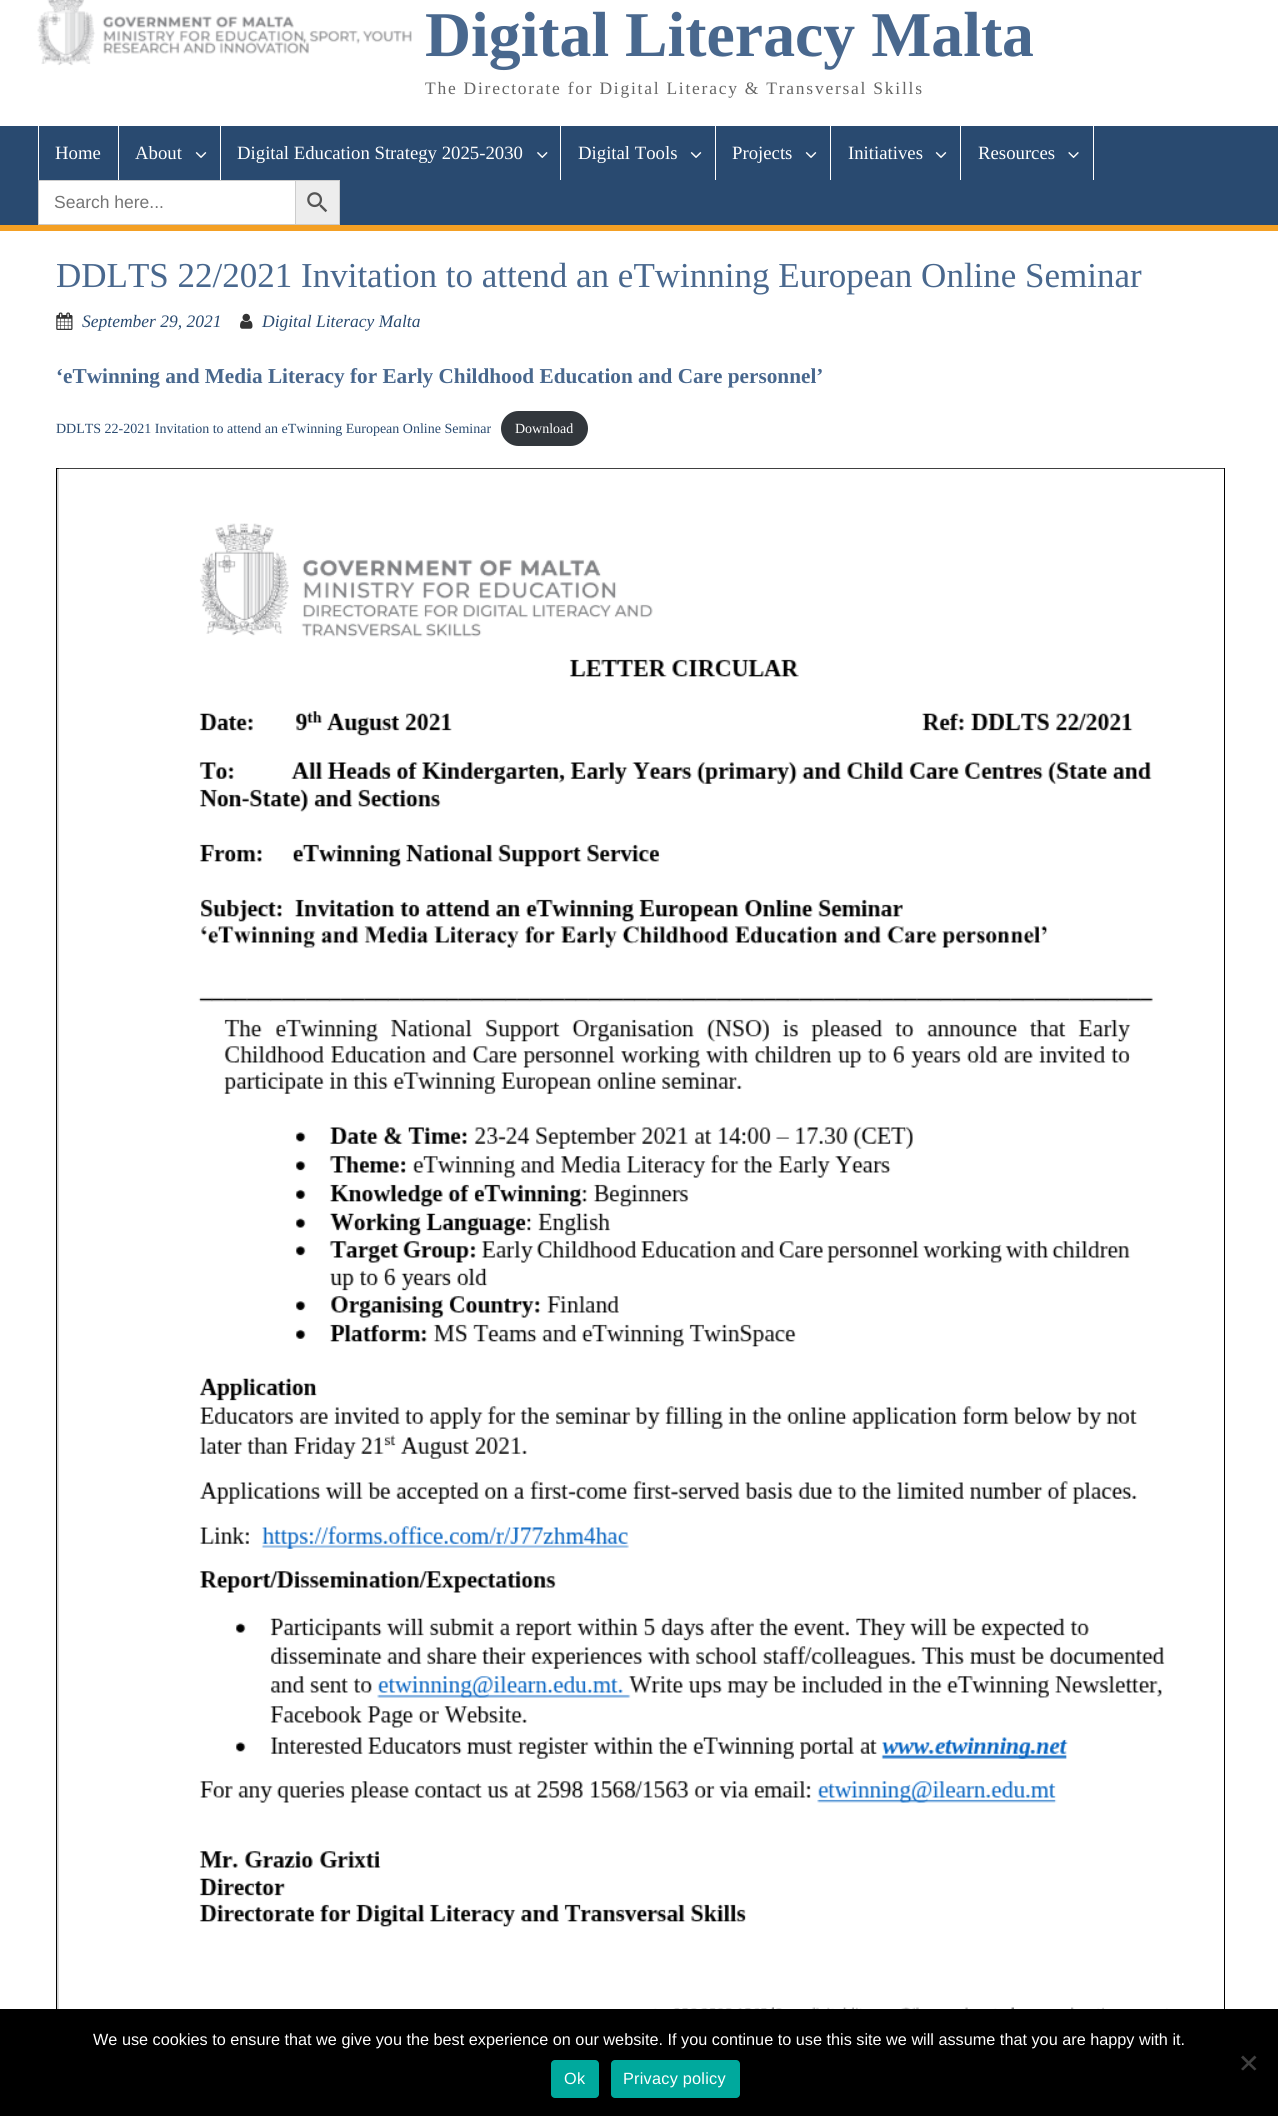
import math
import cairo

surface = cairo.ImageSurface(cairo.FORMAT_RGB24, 1278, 2116)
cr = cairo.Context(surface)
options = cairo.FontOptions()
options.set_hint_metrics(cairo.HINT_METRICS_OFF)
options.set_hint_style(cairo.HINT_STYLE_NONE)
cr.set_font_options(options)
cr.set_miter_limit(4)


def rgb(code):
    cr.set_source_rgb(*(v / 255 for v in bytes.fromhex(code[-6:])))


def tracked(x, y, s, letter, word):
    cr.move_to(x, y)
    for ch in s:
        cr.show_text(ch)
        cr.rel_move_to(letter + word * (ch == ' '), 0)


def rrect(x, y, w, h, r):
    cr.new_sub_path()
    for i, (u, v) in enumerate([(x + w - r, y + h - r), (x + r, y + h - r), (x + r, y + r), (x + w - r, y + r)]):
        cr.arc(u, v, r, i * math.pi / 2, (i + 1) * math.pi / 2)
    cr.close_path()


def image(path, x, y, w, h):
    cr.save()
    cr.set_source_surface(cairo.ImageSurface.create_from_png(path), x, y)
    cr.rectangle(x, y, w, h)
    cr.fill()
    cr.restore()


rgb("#ffffff")
cr.paint()
image("img/1.png", 37, 0, 375, 66)
for x, y, w, h, color in [
    (0, 126, 1278, 99, "#294a70"),
    (0, 225, 1278, 6, "#f4a024"),
    (118, 126, 1, 54, "#ffffff"),
    (38, 126, 1, 54, "#ffffff"),
    (220, 126, 1, 54, "#ffffff"),
]:
    rgb(color)
    cr.rectangle(x, y, w, h)
    cr.fill()
image("img/2.png", 195, 152, 12, 6)
cr.rectangle(560, 126, 1, 54)
cr.fill()
image("img/3.png", 537, 152, 11, 6)
cr.rectangle(715, 126, 1, 54)
cr.fill()
image("img/2.png", 690, 152, 12, 6)
cr.rectangle(830, 126, 1, 54)
cr.fill()
image("img/2.png", 805, 152, 12, 6)
cr.rectangle(960, 126, 1, 54)
cr.fill()
image("img/2.png", 935, 152, 12, 6)
cr.rectangle(1093, 126, 1, 54)
cr.fill()
image("img/4.png", 1068, 152, 11, 6)
for x, y, w, h, color in [
    (39, 181, 256, 43, "#ffffff"),
    (38, 180, 257, 1, "#cccccc"),
    (38, 224, 257, 1, "#cccccc"),
    (38, 180, 1, 45, "#cccccc"),
]:
    rgb(color)
    cr.rectangle(x, y, w, h)
    cr.fill()
rgb("#ededed")
cr.rectangle(295.5, 180.5, 44, 44)
cr.fill_preserve()
rgb("#cccccc")
cr.set_line_width(1)
cr.stroke()
image("img/5.png", 307, 192, 21, 21)
image("img/6.png", 56, 312, 17, 18)
image("img/7.png", 240, 313, 13, 16)
rgb("#32373c")
rrect(501, 411, 87, 35, 17.5)
cr.fill()
rgb("#d3d3d3")
cr.rectangle(57, 469, 2, 1540)
cr.fill()
cr.rectangle(56.5, 468.5, 1168, 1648)
rgb("#000000")
cr.stroke()
image("img/8.png", 58, 468, 1166, 1541)
cr.rectangle(0, 2009, 1278, 107)
cr.fill()
rgb("#404040")
cr.new_path()
cr.move_to(1254.5, 2055.5)
cr.line_to(1256.5, 2057.5)
cr.line_to(1243, 2070.5)
cr.line_to(1241, 2069)
cr.close_path()
cr.fill()
cr.new_path()
cr.move_to(1241, 2057.5)
cr.line_to(1243, 2055.5)
cr.line_to(1256.5, 2069)
cr.line_to(1254.5, 2070.5)
cr.close_path()
cr.fill()
rgb("#00a99d")
rrect(551, 2060, 48, 38, 4)
cr.fill()
rrect(611, 2060, 129, 38, 4)
cr.fill()
cr.select_font_face("Liberation Serif", cairo.FONT_SLANT_NORMAL, cairo.FONT_WEIGHT_BOLD)
cr.set_font_size(63.75)
rgb("#49688e")
cr.move_to(425, 56)
cr.show_text("Digital Literacy Malta")
cr.select_font_face("Liberation Serif")
cr.set_font_size(17.5)
rgb("#666666")
tracked(425, 94, "The Directorate for Digital Literacy & Transversal Skills", 1.75, 0)
cr.set_font_size(18.75)
rgb("#ffffff")
for x, y, s in [
    (55, 159, "Home"),
    (135, 159, "About"),
    (237, 159, "Digital Education Strategy 2025-2030"),
    (578, 159, "Digital Tools"),
    (732, 159, "Projects"),
    (848, 159, "Initiatives"),
    (978, 159, "Resources"),
]:
    cr.move_to(x, y)
    cr.show_text(s)
cr.select_font_face("Liberation Sans")
cr.set_font_size(17.5)
rgb("#757575")
cr.move_to(54, 208)
cr.show_text("Search here...")
cr.select_font_face("Liberation Serif")
cr.set_font_size(35)
rgb("#49688e")
cr.move_to(56, 287)
cr.show_text("DDLTS 22/2021 Invitation to attend an eTwinning European Online Seminar")
cr.select_font_face("Liberation Serif", cairo.FONT_SLANT_ITALIC)
cr.set_font_size(17.5)
rgb("#294a70")
cr.move_to(82, 327)
cr.show_text("September 29, 2021")
cr.move_to(262, 327)
cr.show_text("Digital Literacy Malta")
cr.select_font_face("Liberation Serif", cairo.FONT_SLANT_NORMAL, cairo.FONT_WEIGHT_BOLD)
cr.set_font_size(21.25)
rgb("#49688e")
cr.move_to(56, 383)
cr.show_text("‘eTwinning and Media Literacy for Early Childhood Education and Care personnel’")
cr.select_font_face("Liberation Serif")
cr.set_font_size(14)
rgb("#294a70")
cr.move_to(56, 433)
cr.show_text("DDLTS 22-2021 Invitation to attend an eTwinning European Online Seminar")
rgb("#ffffff")
cr.move_to(515, 433)
cr.show_text("Download")
cr.select_font_face("Liberation Sans")
cr.set_font_size(16.25)
cr.move_to(93, 2045)
cr.show_text("We use cookies to ensure that we give you the best experience on our website. If you continue to use this site we will assume that you are happy with it.")
tracked(564, 2084, "Ok", 0.25, 0)
tracked(623, 2084, "Privacy policy", 0.25, 0)
surface.write_to_png("page.png")
